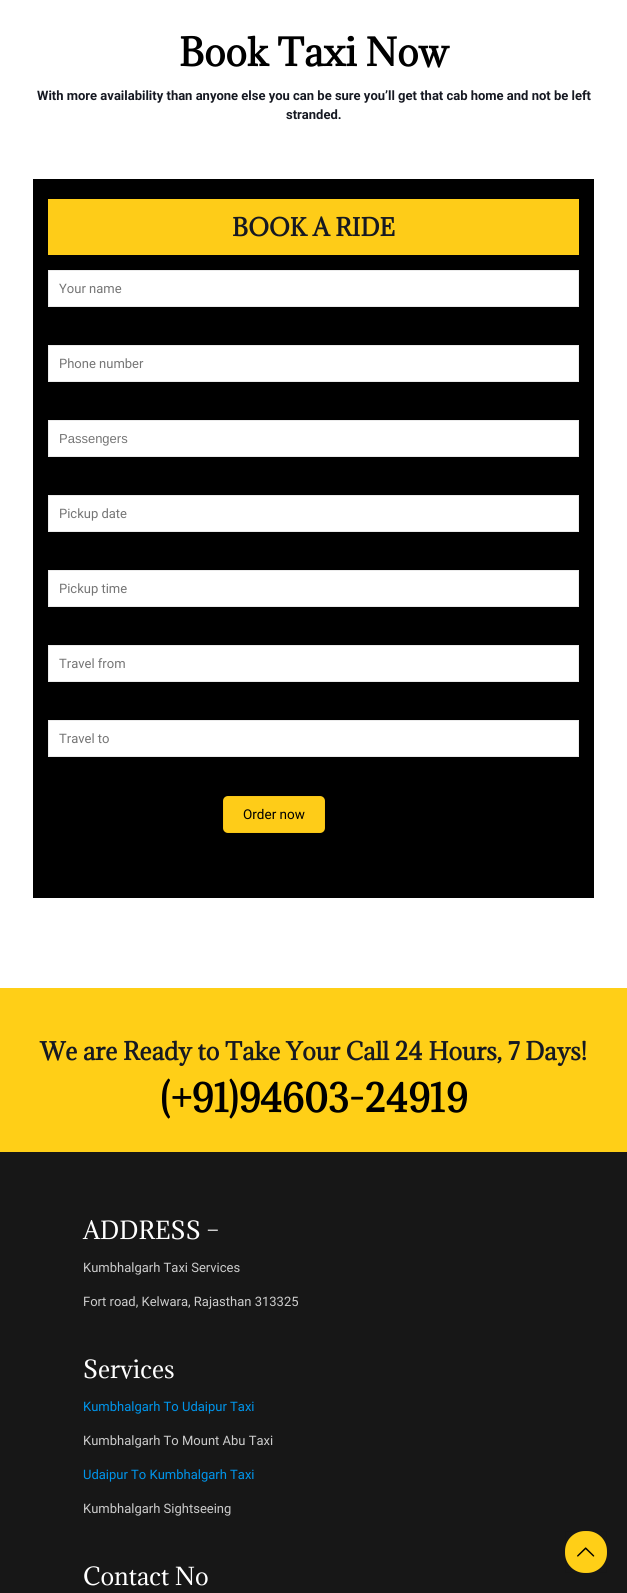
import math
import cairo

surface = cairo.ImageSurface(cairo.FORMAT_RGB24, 627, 1593)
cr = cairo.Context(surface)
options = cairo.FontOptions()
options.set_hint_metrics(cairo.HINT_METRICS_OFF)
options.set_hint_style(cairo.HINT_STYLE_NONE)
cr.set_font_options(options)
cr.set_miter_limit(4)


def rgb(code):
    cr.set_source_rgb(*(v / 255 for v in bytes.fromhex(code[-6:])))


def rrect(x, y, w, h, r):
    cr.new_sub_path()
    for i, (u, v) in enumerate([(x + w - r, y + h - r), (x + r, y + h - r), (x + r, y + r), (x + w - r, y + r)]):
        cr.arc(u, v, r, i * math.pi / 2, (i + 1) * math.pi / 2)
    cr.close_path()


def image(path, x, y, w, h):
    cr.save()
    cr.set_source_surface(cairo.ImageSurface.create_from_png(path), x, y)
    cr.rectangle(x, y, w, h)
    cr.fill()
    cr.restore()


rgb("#ffffff")
cr.paint()
rgb("#000000")
cr.rectangle(33, 179, 561, 719)
cr.fill()
rgb("#fecc18")
cr.rectangle(48, 199, 531, 56)
cr.fill()
rgb("#ffffff")
cr.rectangle(48.5, 270.5, 530, 36)
cr.fill_preserve()
rgb("#ebebeb")
cr.set_line_width(1)
cr.stroke()
rgb("#ffffff")
cr.rectangle(48.5, 345.5, 530, 36)
cr.fill_preserve()
rgb("#ebebeb")
cr.stroke()
rgb("#ffffff")
cr.rectangle(48.5, 420.5, 530, 36)
cr.fill_preserve()
rgb("#ebebeb")
cr.stroke()
rgb("#ffffff")
cr.rectangle(48.5, 495.5, 530, 36)
cr.fill_preserve()
rgb("#ebebeb")
cr.stroke()
rgb("#ffffff")
cr.rectangle(48.5, 570.5, 530, 36)
cr.fill_preserve()
rgb("#ebebeb")
cr.stroke()
rgb("#ffffff")
cr.rectangle(48.5, 645.5, 530, 36)
cr.fill_preserve()
rgb("#ebebeb")
cr.stroke()
rgb("#ffffff")
cr.rectangle(48.5, 720.5, 530, 36)
cr.fill_preserve()
rgb("#ebebeb")
cr.stroke()
rgb("#fecc18")
rrect(223, 796, 102, 37, 5)
cr.fill()
cr.rectangle(223.5, 796.5, 101, 36)
cr.set_source_rgba(0, 0, 0, 0.03)
cr.stroke()
rgb("#ffcf17")
cr.rectangle(0, 988, 627, 164)
cr.fill()
rgb("#171717")
cr.rectangle(0, 1152, 627, 441)
cr.fill()
rgb("#ffcf17")
rrect(565, 1531, 42, 42, 20)
cr.fill()
cr.rectangle(565.5, 1531.5, 41, 41)
cr.set_source_rgba(0, 0, 0, 0.03)
cr.stroke()
image("img/1.png", 577, 1547, 18, 10)
cr.select_font_face("Adamina", cairo.FONT_SLANT_NORMAL, cairo.FONT_WEIGHT_BOLD)
cr.set_font_size(36)
rgb("#000000")
cr.move_to(179, 66)
cr.show_text("Book Taxi Now")
cr.select_font_face("Roboto", cairo.FONT_SLANT_NORMAL, cairo.FONT_WEIGHT_BOLD)
cr.set_font_size(13)
rgb("#161922")
cr.move_to(37, 100)
cr.show_text("With more availability than anyone else you can be sure you’ll get that cab home and not be left")
cr.move_to(286, 119)
cr.show_text("stranded.")
cr.select_font_face("Adamina", cairo.FONT_SLANT_NORMAL, cairo.FONT_WEIGHT_BOLD)
cr.set_font_size(23)
cr.move_to(232, 236)
cr.show_text("BOOK A RIDE")
cr.select_font_face("Roboto")
cr.set_font_size(13)
rgb("#757575")
cr.move_to(59, 293)
cr.show_text("Your name")
cr.move_to(59, 368)
cr.show_text("Phone number")
cr.select_font_face("Liberation Sans")
cr.move_to(59, 443)
cr.show_text("Passengers")
cr.select_font_face("Roboto")
for x, y, s in [
    (59, 518, "Pickup date"),
    (59, 593, "Pickup time"),
    (59, 668, "Travel from"),
    (59, 743, "Travel to"),
]:
    cr.move_to(x, y)
    cr.show_text(s)
cr.set_font_size(13.5)
rgb("#000000")
cr.move_to(243, 819)
cr.show_text("Order now")
cr.select_font_face("Adamina", cairo.FONT_SLANT_NORMAL, cairo.FONT_WEIGHT_BOLD)
cr.set_font_size(23)
rgb("#161922")
cr.move_to(40, 1060)
cr.show_text("We are Ready to Take Your Call 24 Hours, 7 Days!")
cr.set_font_size(36)
rgb("#000000")
cr.move_to(160, 1112)
cr.show_text("(+91)94603-24919")
cr.select_font_face("Adamina")
cr.set_font_size(23)
rgb("#ffffff")
cr.move_to(83, 1239)
cr.show_text("ADDRESS –")
cr.select_font_face("Roboto")
cr.set_font_size(13)
rgb("#cccccc")
cr.move_to(83, 1272)
cr.show_text("Kumbhalgarh Taxi Services")
cr.move_to(83, 1306)
cr.show_text("Fort road, Kelwara, Rajasthan 313325")
cr.select_font_face("Adamina")
cr.set_font_size(23)
rgb("#ffffff")
cr.move_to(83, 1378)
cr.show_text("Services")
cr.select_font_face("Roboto")
cr.set_font_size(13)
rgb("#0095eb")
cr.move_to(83, 1411)
cr.show_text("Kumbhalgarh To Udaipur Taxi")
rgb("#cccccc")
cr.move_to(83, 1445)
cr.show_text("Kumbhalgarh To Mount Abu Taxi")
rgb("#0095eb")
cr.move_to(83, 1479)
cr.show_text("Udaipur To Kumbhalgarh Taxi")
rgb("#cccccc")
cr.move_to(83, 1513)
cr.show_text("Kumbhalgarh Sightseeing")
cr.select_font_face("Adamina")
cr.set_font_size(23)
rgb("#ffffff")
cr.move_to(83, 1585)
cr.show_text("Contact No")
surface.write_to_png("page.png")
